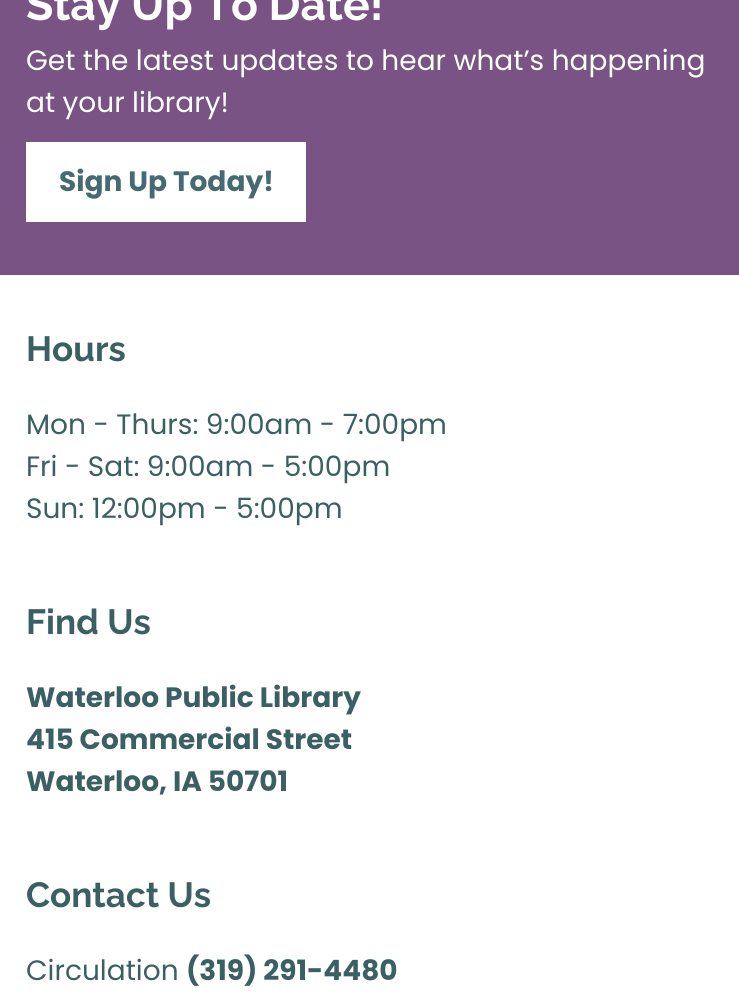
import math
import cairo

surface = cairo.ImageSurface(cairo.FORMAT_RGB24, 739, 1003)
cr = cairo.Context(surface)
options = cairo.FontOptions()
options.set_hint_metrics(cairo.HINT_METRICS_OFF)
options.set_hint_style(cairo.HINT_STYLE_NONE)
cr.set_font_options(options)
cr.set_miter_limit(4)


def rgb(code):
    cr.set_source_rgb(*(v / 255 for v in bytes.fromhex(code[-6:])))


rgb("#ffffff")
cr.paint()
rgb("#785383")
cr.rectangle(0, 0, 739, 275)
cr.fill()
rgb("#ffffff")
cr.rectangle(26, 142, 280, 80)
cr.fill()
cr.select_font_face("Raleway", cairo.FONT_SLANT_NORMAL, cairo.FONT_WEIGHT_BOLD)
cr.set_font_size(44.5)
cr.move_to(26, 20)
cr.show_text("Stay Up To Date!")
cr.select_font_face("Poppins")
cr.set_font_size(28)
cr.move_to(26, 70)
cr.show_text("Get the latest updates to hear what’s happening")
cr.move_to(26, 112)
cr.show_text("at your library!")
cr.select_font_face("Poppins", cairo.FONT_SLANT_NORMAL, cairo.FONT_WEIGHT_BOLD)
rgb("#466a71")
cr.move_to(59, 191)
cr.show_text("Sign Up Today!")
cr.select_font_face("Raleway", cairo.FONT_SLANT_NORMAL, cairo.FONT_WEIGHT_BOLD)
cr.set_font_size(35)
rgb("#3b6064")
cr.move_to(26, 361)
cr.show_text("Hours")
cr.select_font_face("Poppins")
cr.set_font_size(28)
for x, y, s in [
    (26, 434, "Mon - Thurs: 9:00am - 7:00pm"),
    (26, 476, "Fri - Sat: 9:00am - 5:00pm"),
    (26, 518, "Sun: 12:00pm - 5:00pm"),
]:
    cr.move_to(x, y)
    cr.show_text(s)
cr.select_font_face("Raleway", cairo.FONT_SLANT_NORMAL, cairo.FONT_WEIGHT_BOLD)
cr.set_font_size(35)
cr.move_to(26, 634)
cr.show_text("Find Us")
cr.select_font_face("Poppins", cairo.FONT_SLANT_NORMAL, cairo.FONT_WEIGHT_BOLD)
cr.set_font_size(28)
for x, y, s in [
    (26, 707, "Waterloo Public Library"),
    (26, 749, "415 Commercial Street"),
    (26, 791, "Waterloo, IA 50701"),
]:
    cr.move_to(x, y)
    cr.show_text(s)
cr.select_font_face("Raleway", cairo.FONT_SLANT_NORMAL, cairo.FONT_WEIGHT_BOLD)
cr.set_font_size(35)
cr.move_to(26, 907)
cr.show_text("Contact Us")
cr.select_font_face("Poppins")
cr.set_font_size(28)
cr.move_to(26, 980)
cr.show_text("Circulation")
cr.select_font_face("Poppins", cairo.FONT_SLANT_NORMAL, cairo.FONT_WEIGHT_BOLD)
cr.move_to(186, 980)
cr.show_text("(319) 291-4480")
surface.write_to_png("page.png")
